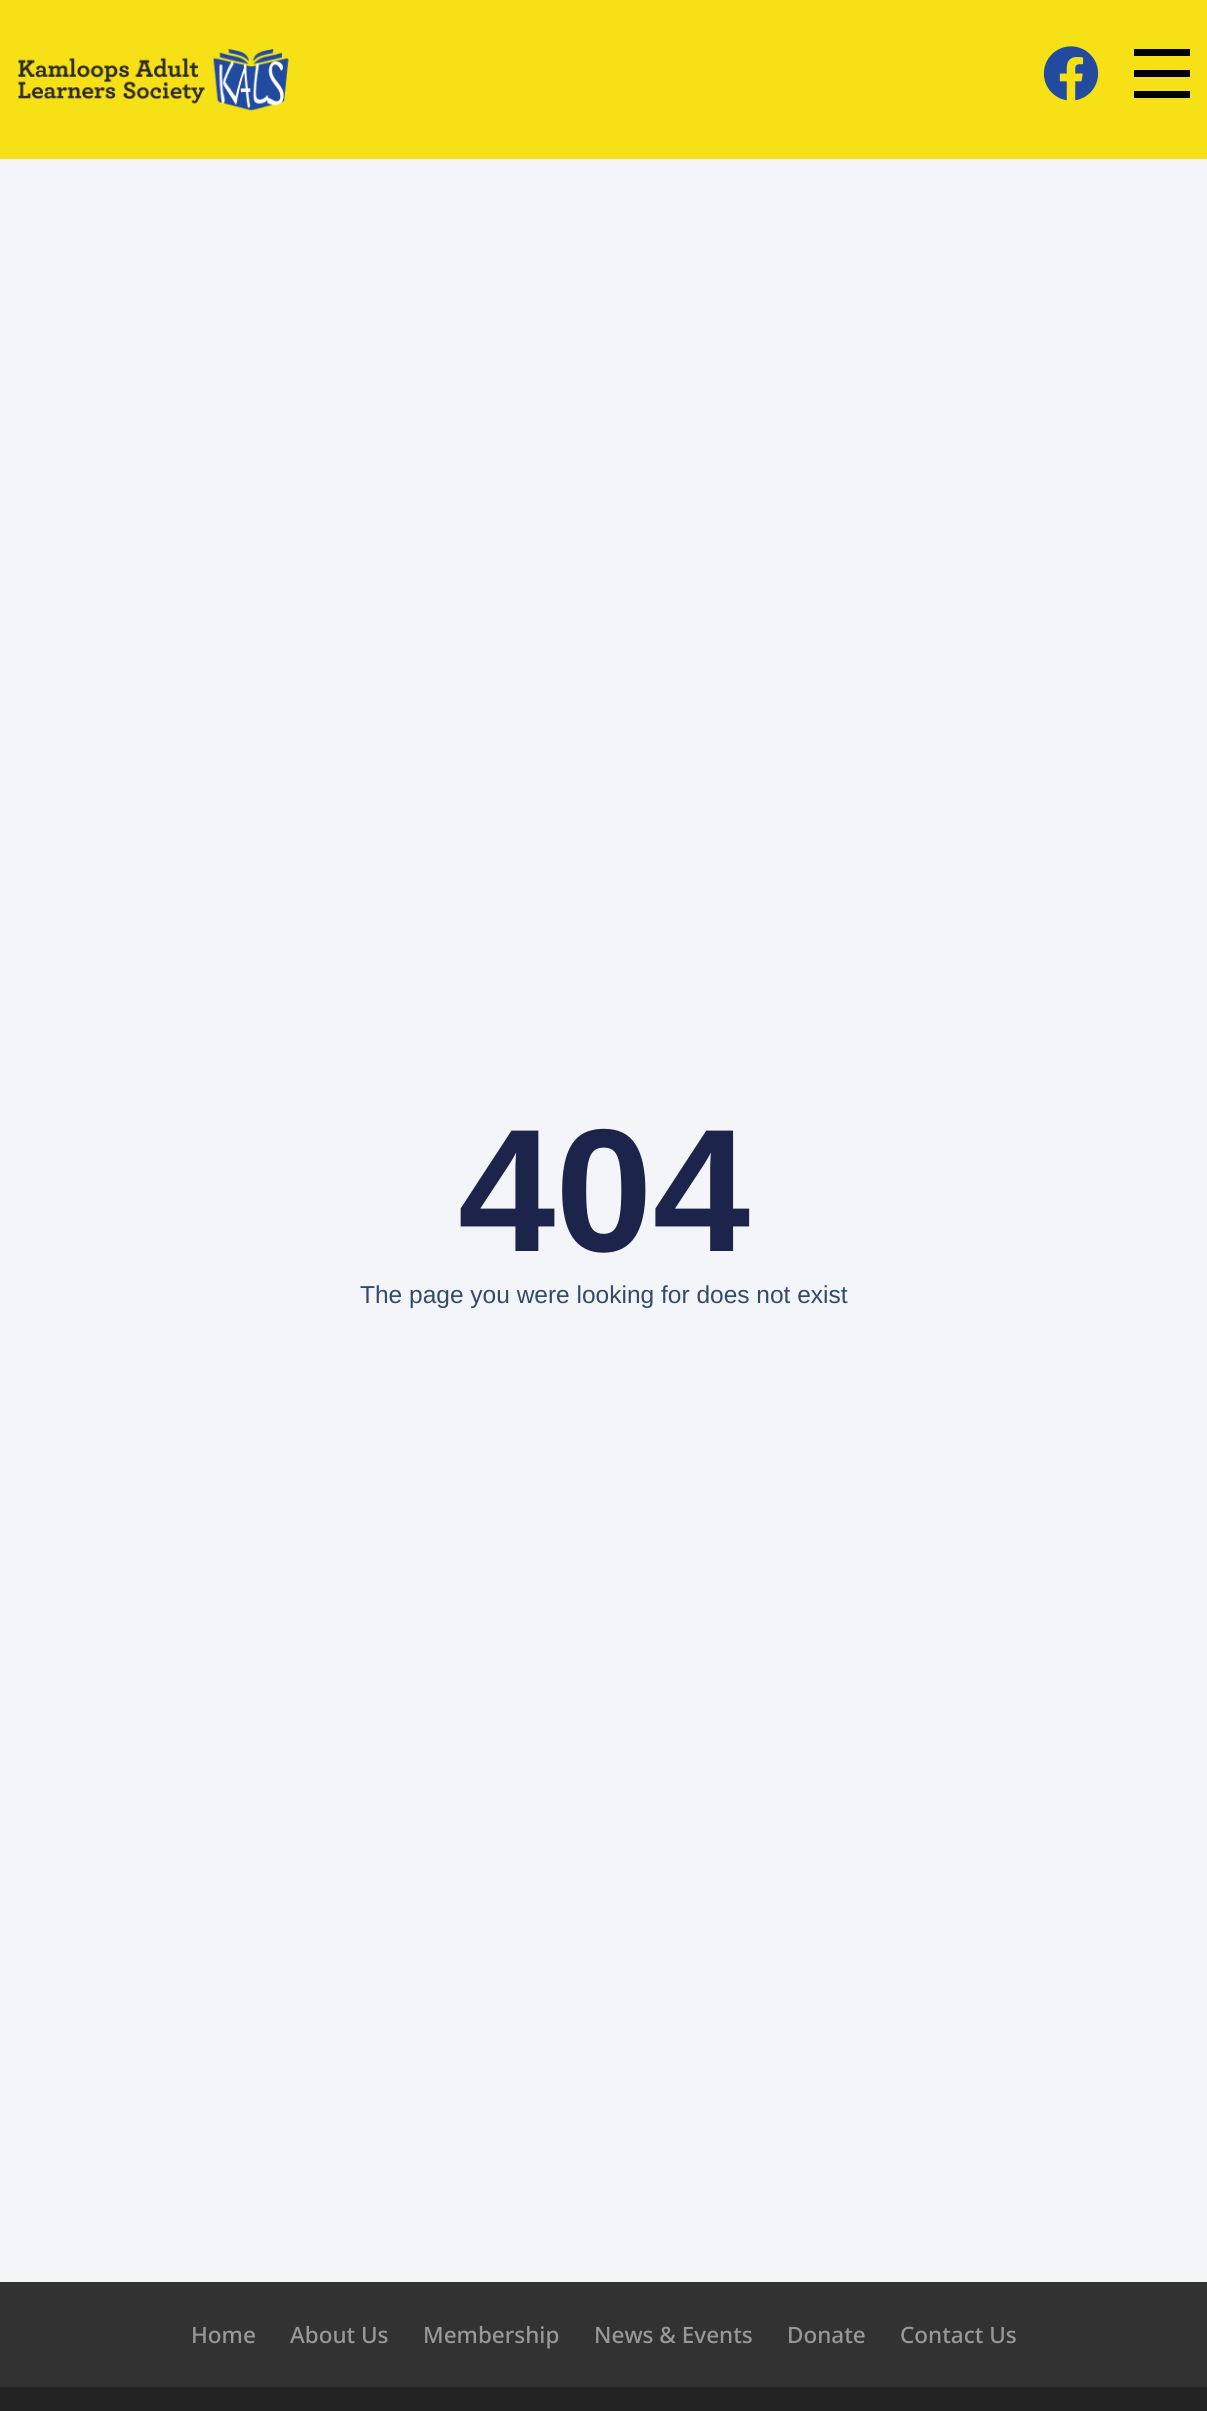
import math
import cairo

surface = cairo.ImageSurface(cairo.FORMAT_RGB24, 1207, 2411)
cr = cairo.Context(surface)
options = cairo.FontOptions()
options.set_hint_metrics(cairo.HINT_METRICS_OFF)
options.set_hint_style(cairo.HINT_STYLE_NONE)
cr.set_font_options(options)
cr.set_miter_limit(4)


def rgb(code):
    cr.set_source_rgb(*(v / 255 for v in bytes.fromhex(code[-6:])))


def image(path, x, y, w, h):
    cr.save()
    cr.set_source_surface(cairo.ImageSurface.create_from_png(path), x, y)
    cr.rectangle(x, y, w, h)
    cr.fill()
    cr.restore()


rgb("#f3f5f8")
cr.paint()
rgb("#f6e116")
cr.rectangle(0, 0, 1207, 159)
cr.fill()
image("img/1.png", 18, 49, 271, 62)
image("img/2.png", 1043, 46, 56, 55)
for x, y, w, h, color in [
    (1134, 49, 56, 7, "#000000"),
    (1134, 70, 56, 7, "#000000"),
    (1134, 91, 56, 7, "#000000"),
    (0, 2282, 1207, 105, "#323232"),
    (0, 2387, 1207, 24, "#232323"),
]:
    rgb(color)
    cr.rectangle(x, y, w, h)
    cr.fill()
cr.select_font_face("Liberation Sans", cairo.FONT_SLANT_NORMAL, cairo.FONT_WEIGHT_BOLD)
cr.set_font_size(175)
rgb("#1c244b")
cr.move_to(458, 1251)
cr.show_text("404")
cr.select_font_face("Liberation Sans")
cr.set_font_size(24.5)
rgb("#324a6d")
cr.move_to(360, 1303)
cr.show_text("The page you were looking for does not exist")
cr.select_font_face("Noto Sans Medium")
cr.set_font_size(22.5)
rgb("#989898")
for x, y, s in [
    (191, 2343, "Home"),
    (290, 2343, "About Us"),
    (423, 2343, "Membership"),
    (594, 2343, "News & Events"),
    (787, 2343, "Donate"),
    (900, 2343, "Contact Us"),
]:
    cr.move_to(x, y)
    cr.show_text(s)
surface.write_to_png("page.png")
